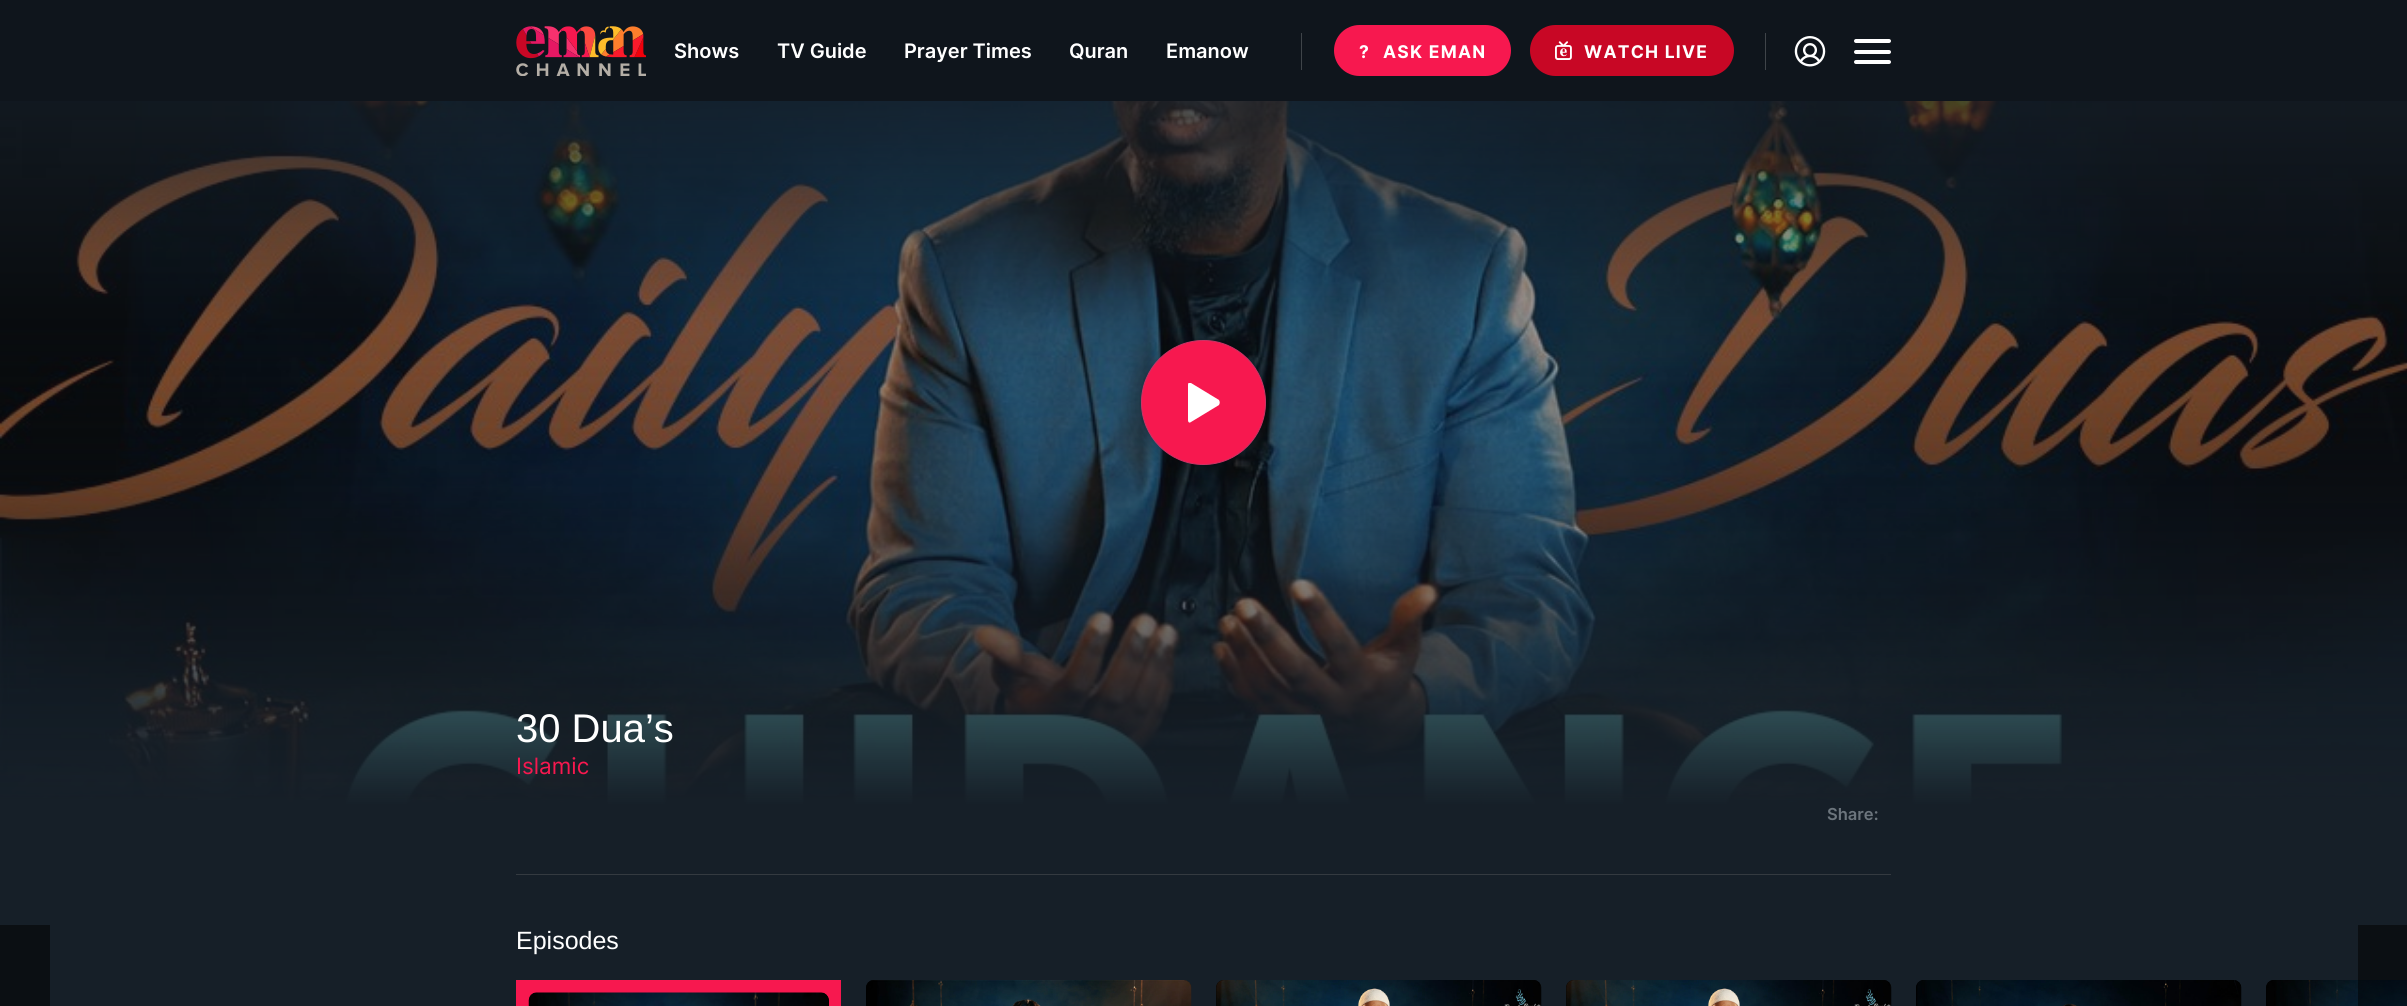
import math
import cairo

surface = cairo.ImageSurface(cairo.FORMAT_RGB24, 2407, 1006)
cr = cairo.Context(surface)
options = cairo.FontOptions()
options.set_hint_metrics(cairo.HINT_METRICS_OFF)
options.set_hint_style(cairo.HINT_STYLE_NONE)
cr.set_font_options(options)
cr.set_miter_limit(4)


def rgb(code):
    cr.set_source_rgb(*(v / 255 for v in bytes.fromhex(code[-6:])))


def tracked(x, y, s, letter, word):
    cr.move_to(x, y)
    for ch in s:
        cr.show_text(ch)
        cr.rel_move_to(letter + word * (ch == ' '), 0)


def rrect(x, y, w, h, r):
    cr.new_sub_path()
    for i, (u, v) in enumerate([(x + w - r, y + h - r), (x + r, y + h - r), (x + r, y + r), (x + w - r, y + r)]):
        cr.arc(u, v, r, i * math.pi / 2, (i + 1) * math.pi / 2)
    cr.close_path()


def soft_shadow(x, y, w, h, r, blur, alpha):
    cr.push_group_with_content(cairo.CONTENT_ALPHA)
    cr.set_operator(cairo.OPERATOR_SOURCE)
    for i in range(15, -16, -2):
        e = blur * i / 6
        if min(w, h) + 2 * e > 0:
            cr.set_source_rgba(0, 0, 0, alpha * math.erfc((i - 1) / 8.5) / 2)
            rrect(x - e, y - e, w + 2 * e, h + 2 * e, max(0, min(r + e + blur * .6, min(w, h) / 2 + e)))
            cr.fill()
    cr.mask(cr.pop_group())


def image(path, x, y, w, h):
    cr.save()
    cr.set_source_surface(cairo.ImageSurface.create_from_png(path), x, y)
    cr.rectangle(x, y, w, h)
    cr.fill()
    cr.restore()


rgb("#161f28")
cr.paint()
rgb("#0f151c")
cr.rectangle(0, 0, 2407, 101)
cr.fill()
image("img/1.png", 516, 26, 130, 50)
rgb("#3f4449")
cr.rectangle(1301, 33, 1, 37)
cr.fill()
rgb("#f7184f")
rrect(1334, 25, 177, 51, 25.5)
cr.fill()
rgb("#c80725")
rrect(1530, 25, 204, 51, 25.5)
cr.fill()
image("img/2.png", 1555, 41, 17, 19)
rgb("#3f4449")
cr.rectangle(1765, 33, 1, 37)
cr.fill()
image("img/3.png", 1794, 36, 32, 31)
rgb("#ffffff")
rrect(1854, 39, 37, 4, 2)
cr.fill()
rrect(1854, 50, 37, 4, 2)
cr.fill()
rrect(1854, 60, 37, 4, 2)
cr.fill()
image("img/4.png", 0, 101, 2407, 704)
rgb("#000000")
soft_shadow(1141, 340, 125, 125, 62.5, 12.5, 0.25)
rgb("#f7184f")
cr.arc(1203.5, 402.5, 62, 0, 2 * math.pi)
cr.fill_preserve()
rgb("#cc3366")
cr.set_line_width(1)
cr.stroke()
cr.save()
cr.rectangle(1184, 383, 40, 40)
cr.clip()
rgb("#ffffff")
cr.set_fill_rule(cairo.FILL_RULE_EVEN_ODD)
cr.new_path()
cr.move_to(1219, 400)
cr.line_to(1191, 383)
cr.curve_to(1190, 382, 1188, 382, 1188, 385)
cr.line_to(1188, 420)
cr.curve_to(1188, 423, 1190, 423, 1191, 422)
cr.line_to(1219, 405)
cr.curve_to(1220, 403, 1220, 402, 1219, 400)
cr.fill()
cr.restore()
for x, y, w, h, color in [
    (516, 874, 1375, 1, "#343a40"),
    (0, 925, 50, 81, "#0b0f13"),
    (516, 980, 325, 26, "#f7184f"),
]:
    rgb(color)
    cr.rectangle(x, y, w, h)
    cr.fill()
rgb("#000000")
rrect(529, 993, 300, 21, 8)
cr.fill()
image("img/5.png", 528, 992, 301, 14)
rrect(866, 980, 325, 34, 8)
cr.fill()
image("img/6.png", 866, 980, 326, 26)
rrect(1216, 980, 325, 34, 8)
cr.fill()
image("img/7.png", 1216, 980, 326, 26)
rrect(1566, 980, 325, 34, 8)
cr.fill()
image("img/7.png", 1566, 980, 326, 26)
rrect(1916, 980, 325, 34, 8)
cr.fill()
image("img/8.png", 1916, 980, 326, 26)
cr.new_path()
cr.move_to(2274, 980)
cr.line_to(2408, 980)
cr.line_to(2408, 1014)
cr.line_to(2274, 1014)
cr.curve_to(2269.5, 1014, 2266, 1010.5, 2266, 1006)
cr.line_to(2266, 988)
cr.curve_to(2266, 983.5, 2269.5, 980, 2274, 980)
cr.close_path()
cr.fill()
image("img/9.png", 2266, 980, 141, 26)
cr.set_source_rgba(0, 0, 0, 0.52)
cr.rectangle(2358, 925, 49, 81)
cr.fill()
cr.select_font_face("Inter SemiBold")
cr.set_font_size(20)
rgb("#ffffff")
for x, y, s in [
    (674, 58, "Shows"),
    (777, 58, "TV Guide"),
    (904, 58, "Prayer Times"),
    (1069, 58, "Quran"),
    (1166, 58, "Emanow"),
]:
    cr.move_to(x, y)
    cr.show_text(s)
cr.select_font_face("Inter", cairo.FONT_SLANT_NORMAL, cairo.FONT_WEIGHT_BOLD)
cr.set_font_size(17.5)
for x, y, s in [
    (1359, 58, "?"),
    (1383, 58, "ASK EMAN"),
    (1584, 58, "WATCH LIVE"),
]:
    tracked(x, y, s, 1.25, 0)
cr.select_font_face("Liberation Sans")
cr.set_font_size(40)
cr.move_to(516, 742)
cr.show_text("30 Dua’s")
cr.select_font_face("Inter")
cr.set_font_size(22.5)
rgb("#f7184f")
cr.move_to(516, 774)
cr.show_text("Islamic")
cr.select_font_face("Inter SemiBold")
cr.set_font_size(16.5)
rgb("#6c757d")
cr.move_to(1827, 820)
cr.show_text("Share:")
cr.select_font_face("Liberation Sans")
cr.set_font_size(25)
rgb("#ffffff")
cr.move_to(516, 949)
cr.show_text("Episodes")
surface.write_to_png("page.png")
